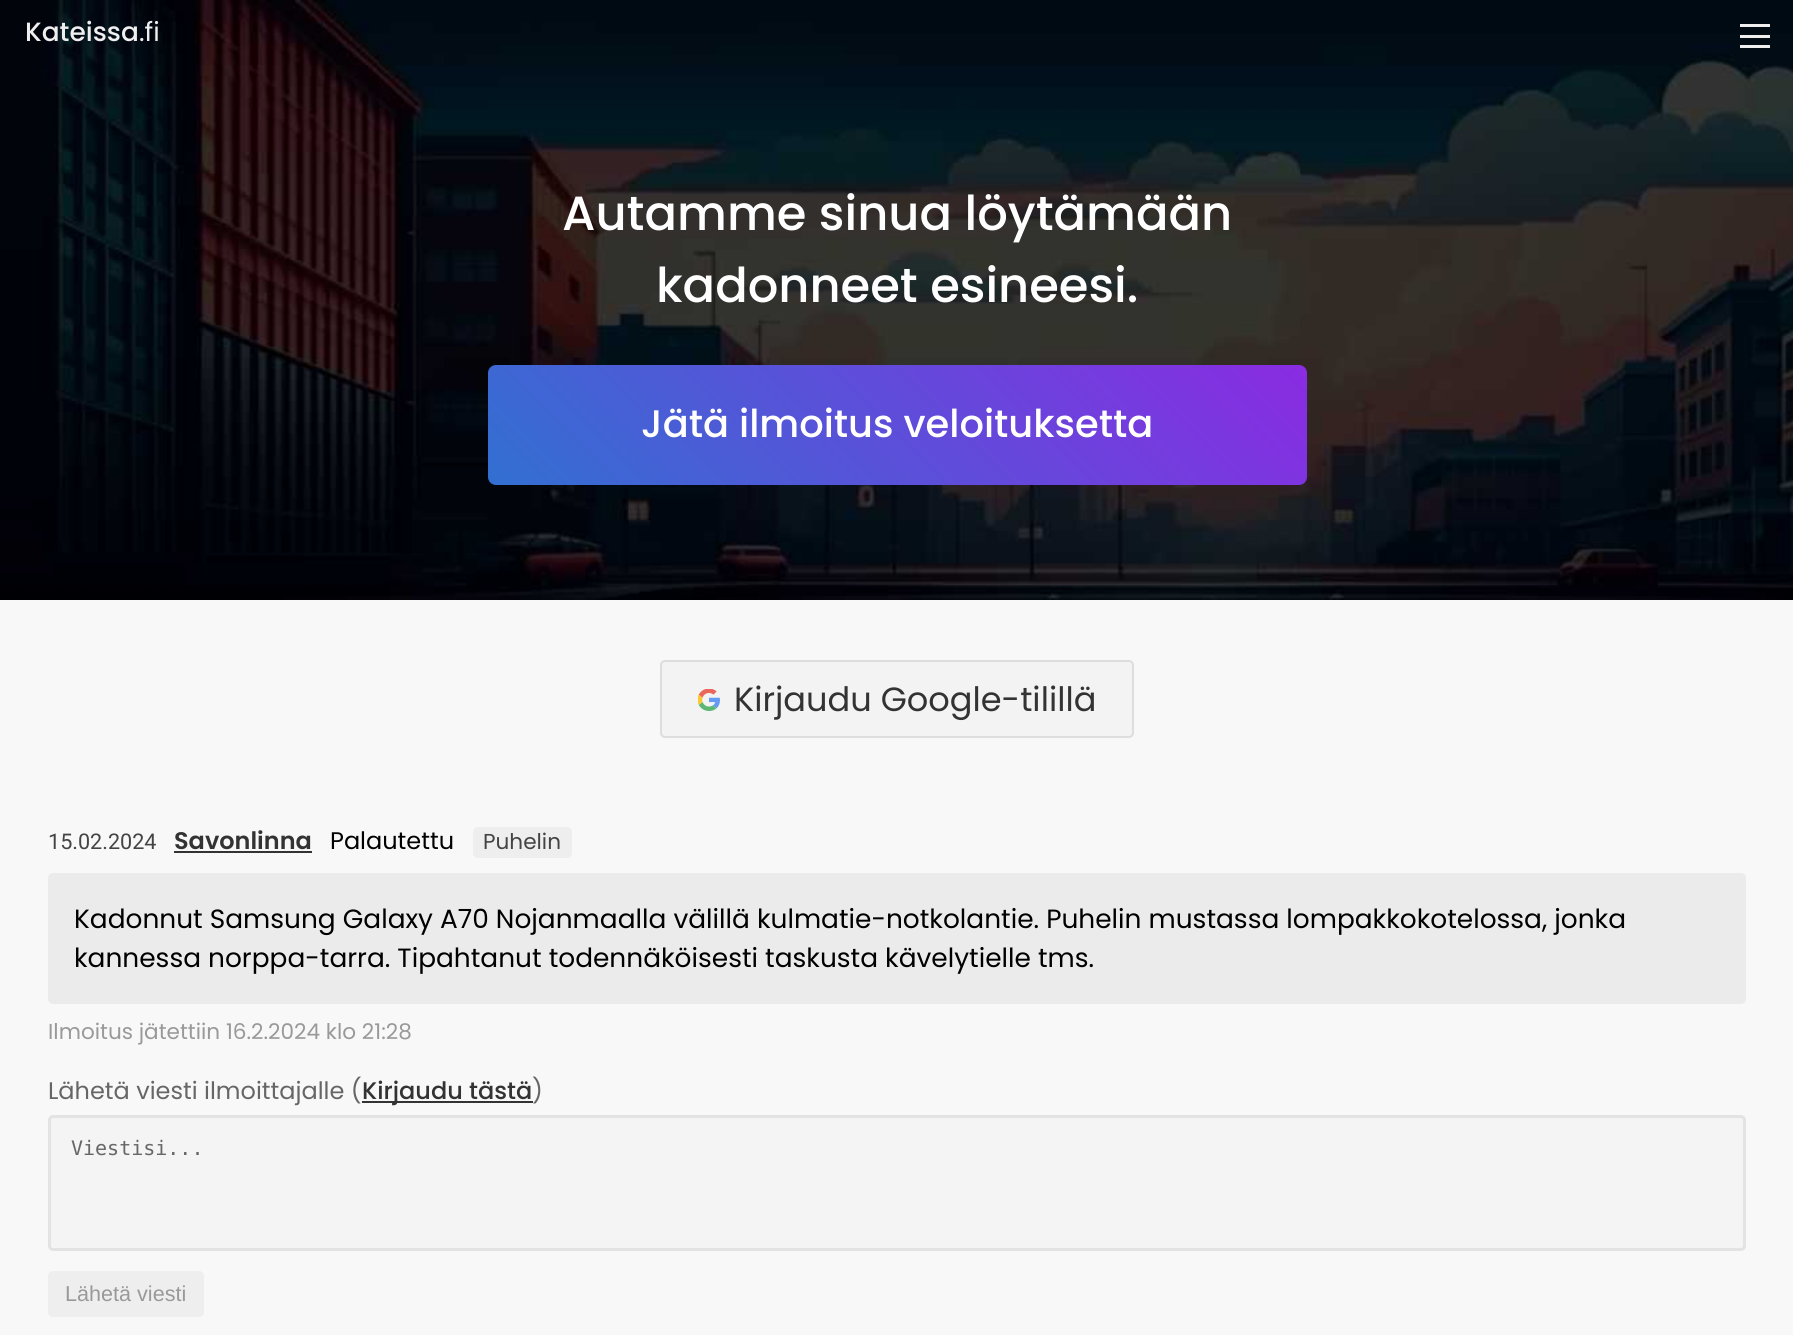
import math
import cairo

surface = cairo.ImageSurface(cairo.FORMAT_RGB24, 1793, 1335)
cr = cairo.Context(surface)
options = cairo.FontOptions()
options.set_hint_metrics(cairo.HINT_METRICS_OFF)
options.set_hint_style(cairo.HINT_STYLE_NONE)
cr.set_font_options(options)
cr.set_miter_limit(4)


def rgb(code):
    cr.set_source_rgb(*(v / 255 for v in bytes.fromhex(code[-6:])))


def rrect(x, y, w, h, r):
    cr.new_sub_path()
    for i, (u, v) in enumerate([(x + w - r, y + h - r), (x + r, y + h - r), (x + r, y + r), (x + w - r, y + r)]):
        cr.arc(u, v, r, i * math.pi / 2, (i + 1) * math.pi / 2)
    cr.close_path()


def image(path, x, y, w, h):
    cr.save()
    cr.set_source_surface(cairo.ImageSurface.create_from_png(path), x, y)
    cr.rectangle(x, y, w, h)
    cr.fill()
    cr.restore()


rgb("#f8f8f8")
cr.paint()
image("img/1.png", 0, 0, 1793, 600)
for x, y, w, h, color in [
    (1740, 24, 30, 3, "#efefef"),
    (1740, 35, 30, 3, "#efefef"),
    (1740, 45, 30, 3, "#efefef"),
]:
    rgb(color)
    cr.rectangle(x, y, w, h)
    cr.fill()
gradient = cairo.LinearGradient(662, 659, 1132, 190)
gradient.add_color_stop_rgba(0, 0.196, 0.439, 0.82, 1)
gradient.add_color_stop_rgba(1, 0.541, 0.169, 0.886, 1)
cr.set_source(gradient)
rrect(488, 365, 819, 120, 8)
cr.fill()
rgb("#f3f3f3")
rrect(661, 661, 472, 76, 4)
cr.fill_preserve()
rgb("#dddddd")
cr.stroke()
image("img/2.png", 698, 689, 22, 22)
rgb("#333333")
cr.rectangle(174, 851, 138, 2)
cr.fill()
rgb("#eeeeee")
rrect(473, 827, 99, 31, 5)
cr.fill()
rgb("#ebebeb")
rrect(48, 873, 1698, 131, 5)
cr.fill()
rgb("#333333")
cr.rectangle(362, 1101, 171, 2)
cr.fill()
rgb("#f4f4f4")
rrect(49.5, 1116.5, 1695, 133, 3.5)
cr.fill_preserve()
rgb("#e3e3e3")
cr.set_line_width(3)
cr.stroke()
rgb("#eeeeee")
rrect(48, 1271, 156, 46, 5)
cr.fill()
cr.select_font_face("Poppins Medium")
cr.set_font_size(26.4)
rgb("#efefef")
cr.move_to(25, 41)
cr.show_text("Kateissa")
cr.select_font_face("Poppins")
cr.move_to(139, 41)
cr.show_text(".fi")
cr.select_font_face("Poppins Medium")
cr.set_font_size(48)
rgb("#ffffff")
cr.move_to(562, 230)
cr.show_text("Autamme sinua löytämään")
cr.move_to(656, 302)
cr.show_text("kadonneet esineesi.")
cr.set_font_size(38.4)
cr.move_to(641, 437)
cr.show_text("Jätä ilmoitus veloituksetta")
cr.select_font_face("Poppins")
cr.set_font_size(33.6)
rgb("#333333")
cr.move_to(734, 711)
cr.show_text("Kirjaudu Google-tilillä")
cr.select_font_face("Roboto")
cr.set_font_size(21.6)
rgb("#444444")
cr.move_to(48, 849)
cr.show_text("15.02.2024")
cr.select_font_face("Poppins SemiBold")
cr.set_font_size(24)
rgb("#333333")
cr.move_to(174, 849)
cr.show_text("Savonlinna")
cr.select_font_face("Poppins")
rgb("#000000")
cr.move_to(330, 849)
cr.show_text("Palautettu")
cr.set_font_size(21.6)
rgb("#444444")
cr.move_to(483, 849)
cr.show_text("Puhelin")
cr.set_font_size(26.4)
rgb("#000000")
cr.move_to(74, 928)
cr.show_text("Kadonnut Samsung Galaxy A70 Nojanmaalla välillä kulmatie-notkolantie. Puhelin mustassa lompakkokotelossa, jonka")
cr.move_to(74, 967)
cr.show_text("kannessa norppa-tarra. Tipahtanut todennäköisesti taskusta kävelytielle tms.")
cr.set_font_size(21.6)
rgb("#999999")
cr.move_to(48, 1039)
cr.show_text("Ilmoitus jätettiin 16.2.2024 klo 21:28")
cr.set_font_size(24)
rgb("#666666")
cr.move_to(48, 1099)
cr.show_text("Lähetä viesti ilmoittajalle (")
cr.select_font_face("Poppins Medium")
rgb("#333333")
cr.move_to(362, 1099)
cr.show_text("Kirjaudu tästä")
cr.select_font_face("Poppins")
rgb("#666666")
cr.move_to(532, 1099)
cr.show_text(")")
cr.select_font_face("DejaVu Sans Mono")
cr.set_font_size(20)
cr.move_to(71, 1155)
cr.show_text("Viestisi...")
cr.select_font_face("Liberation Sans")
cr.set_font_size(21.6)
rgb("#999999")
cr.move_to(65, 1301)
cr.show_text("Lähetä viesti")
surface.write_to_png("page.png")
